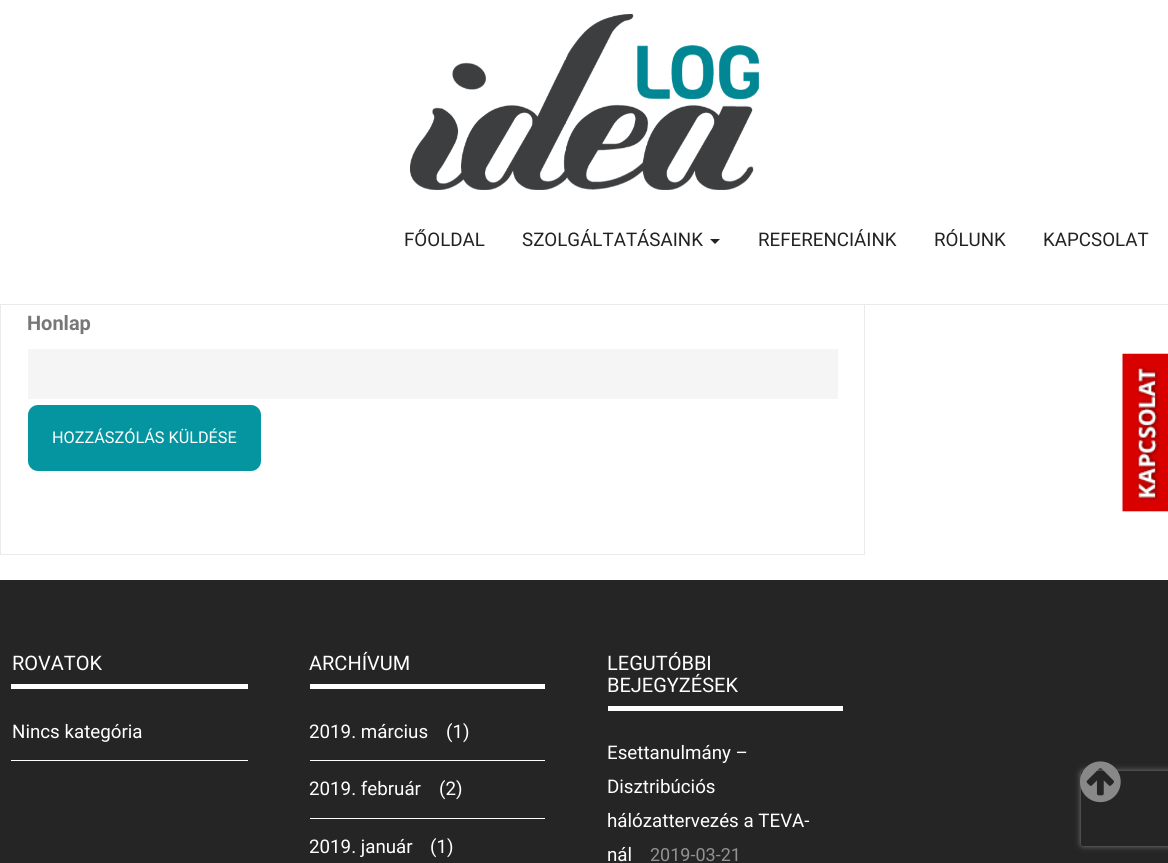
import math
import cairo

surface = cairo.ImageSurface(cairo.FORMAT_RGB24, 1168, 863)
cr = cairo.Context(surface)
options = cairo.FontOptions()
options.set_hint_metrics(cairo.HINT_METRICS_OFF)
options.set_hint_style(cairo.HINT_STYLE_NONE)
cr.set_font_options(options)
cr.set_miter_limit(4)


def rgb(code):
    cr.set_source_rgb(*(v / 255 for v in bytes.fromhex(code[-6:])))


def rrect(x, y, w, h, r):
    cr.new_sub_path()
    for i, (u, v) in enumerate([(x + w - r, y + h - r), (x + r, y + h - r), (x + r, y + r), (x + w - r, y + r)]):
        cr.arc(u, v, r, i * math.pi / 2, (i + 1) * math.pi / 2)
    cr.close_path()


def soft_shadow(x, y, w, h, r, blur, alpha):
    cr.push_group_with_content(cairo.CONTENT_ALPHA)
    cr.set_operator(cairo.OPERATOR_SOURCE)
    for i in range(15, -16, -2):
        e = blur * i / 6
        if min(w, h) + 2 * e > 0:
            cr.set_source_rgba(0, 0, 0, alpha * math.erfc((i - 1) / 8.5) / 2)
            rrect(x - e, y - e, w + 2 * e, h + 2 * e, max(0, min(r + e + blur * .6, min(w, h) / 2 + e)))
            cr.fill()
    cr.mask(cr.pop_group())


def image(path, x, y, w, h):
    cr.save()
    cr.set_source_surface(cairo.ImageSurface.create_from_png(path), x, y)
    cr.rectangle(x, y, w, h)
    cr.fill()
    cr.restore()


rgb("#ffffff")
cr.paint()
cr.rectangle(0.5, -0.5, 864, 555)
rgb("#eaeaea")
cr.set_line_width(1)
cr.stroke()
rgb("#ffffff")
cr.rectangle(0, 0, 865, 304)
cr.fill()
rgb("#eaeaea")
cr.rectangle(0, 304, 1168, 1)
cr.fill()
image("img/1.png", 410, 14, 349, 176)
rgb("#222222")
cr.new_path()
cr.move_to(710, 239)
cr.line_to(720, 239)
cr.line_to(715, 244)
cr.close_path()
cr.fill()
rgb("#f5f5f5")
cr.rectangle(28, 349, 810, 50)
cr.fill()
rgb("#0595a0")
rrect(28, 405, 233, 66, 10)
cr.fill()
for x, y, w, h, color in [
    (0, 580, 1168, 283, "#252525"),
    (11, 684, 237, 5, "#ffffff"),
    (11, 760, 237, 1, "#ffffff"),
    (310, 684, 235, 5, "#ffffff"),
    (310, 760, 235, 1, "#ffffff"),
    (310, 818, 235, 1, "#ffffff"),
    (608, 706, 235, 5, "#ffffff"),
]:
    rgb(color)
    cr.rectangle(x, y, w, h)
    cr.fill()
image("img/2.png", 1122, 353, 46, 159)
cr.save()
cr.set_fill_rule(cairo.FILL_RULE_EVEN_ODD)
cr.new_path()
cr.move_to(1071, 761)
cr.line_to(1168, 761)
cr.line_to(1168, 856)
cr.line_to(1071, 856)
cr.close_path()
cr.move_to(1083.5, 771)
cr.line_to(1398.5, 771)
cr.curve_to(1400, 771, 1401, 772, 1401, 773.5)
cr.line_to(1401, 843.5)
cr.curve_to(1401, 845, 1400, 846, 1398.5, 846)
cr.line_to(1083.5, 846)
cr.curve_to(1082, 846, 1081, 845, 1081, 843.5)
cr.line_to(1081, 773.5)
cr.curve_to(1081, 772, 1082, 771, 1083.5, 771)
cr.close_path()
cr.clip()
rgb("#808080")
soft_shadow(1081, 771, 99, 75, 2.5, 3, 1)
cr.restore()
image("img/3.png", 1080, 761, 41, 42)
cr.select_font_face("Roboto")
cr.set_font_size(18.75)
rgb("#222222")
for x, y, s in [
    (404, 246, "FŐOLDAL"),
    (522, 246, "SZOLGÁLTATÁSAINK"),
    (758, 246, "REFERENCIÁINK"),
    (934, 246, "RÓLUNK"),
    (1043, 246, "KAPCSOLAT"),
]:
    cr.move_to(x, y)
    cr.show_text(s)
cr.select_font_face("Roboto", cairo.FONT_SLANT_NORMAL, cairo.FONT_WEIGHT_BOLD)
cr.set_font_size(20)
rgb("#777777")
cr.move_to(27, 330)
cr.show_text("Honlap")
cr.select_font_face("Roboto")
cr.set_font_size(16.25)
rgb("#ffffff")
cr.move_to(52, 443)
cr.show_text("HOZZÁSZÓLÁS KÜLDÉSE")
cr.set_font_size(20)
cr.move_to(12, 670)
cr.show_text("ROVATOK")
cr.set_font_size(18.75)
cr.move_to(12, 738)
cr.show_text("Nincs kategória")
cr.set_font_size(20)
cr.move_to(309, 670)
cr.show_text("ARCHÍVUM")
cr.set_font_size(18.75)
for x, y, s in [
    (309, 738, "2019. március"),
    (446, 738, "(1)"),
    (309, 795, "2019. február"),
    (439, 795, "(2)"),
    (309, 853, "2019. január"),
    (430, 853, "(1)"),
]:
    cr.move_to(x, y)
    cr.show_text(s)
cr.set_font_size(20)
cr.move_to(607, 670)
cr.show_text("LEGUTÓBBI")
cr.move_to(607, 692)
cr.show_text("BEJEGYZÉSEK")
cr.set_font_size(18.75)
for x, y, s in [
    (607, 759, "Esettanulmány –"),
    (607, 793, "Disztribúciós"),
    (607, 827, "hálózattervezés a TEVA-"),
    (607, 861, "nál"),
]:
    cr.move_to(x, y)
    cr.show_text(s)
cr.set_font_size(18)
rgb("#929292")
cr.move_to(650, 861)
cr.show_text("2019-03-21")
surface.write_to_png("page.png")
